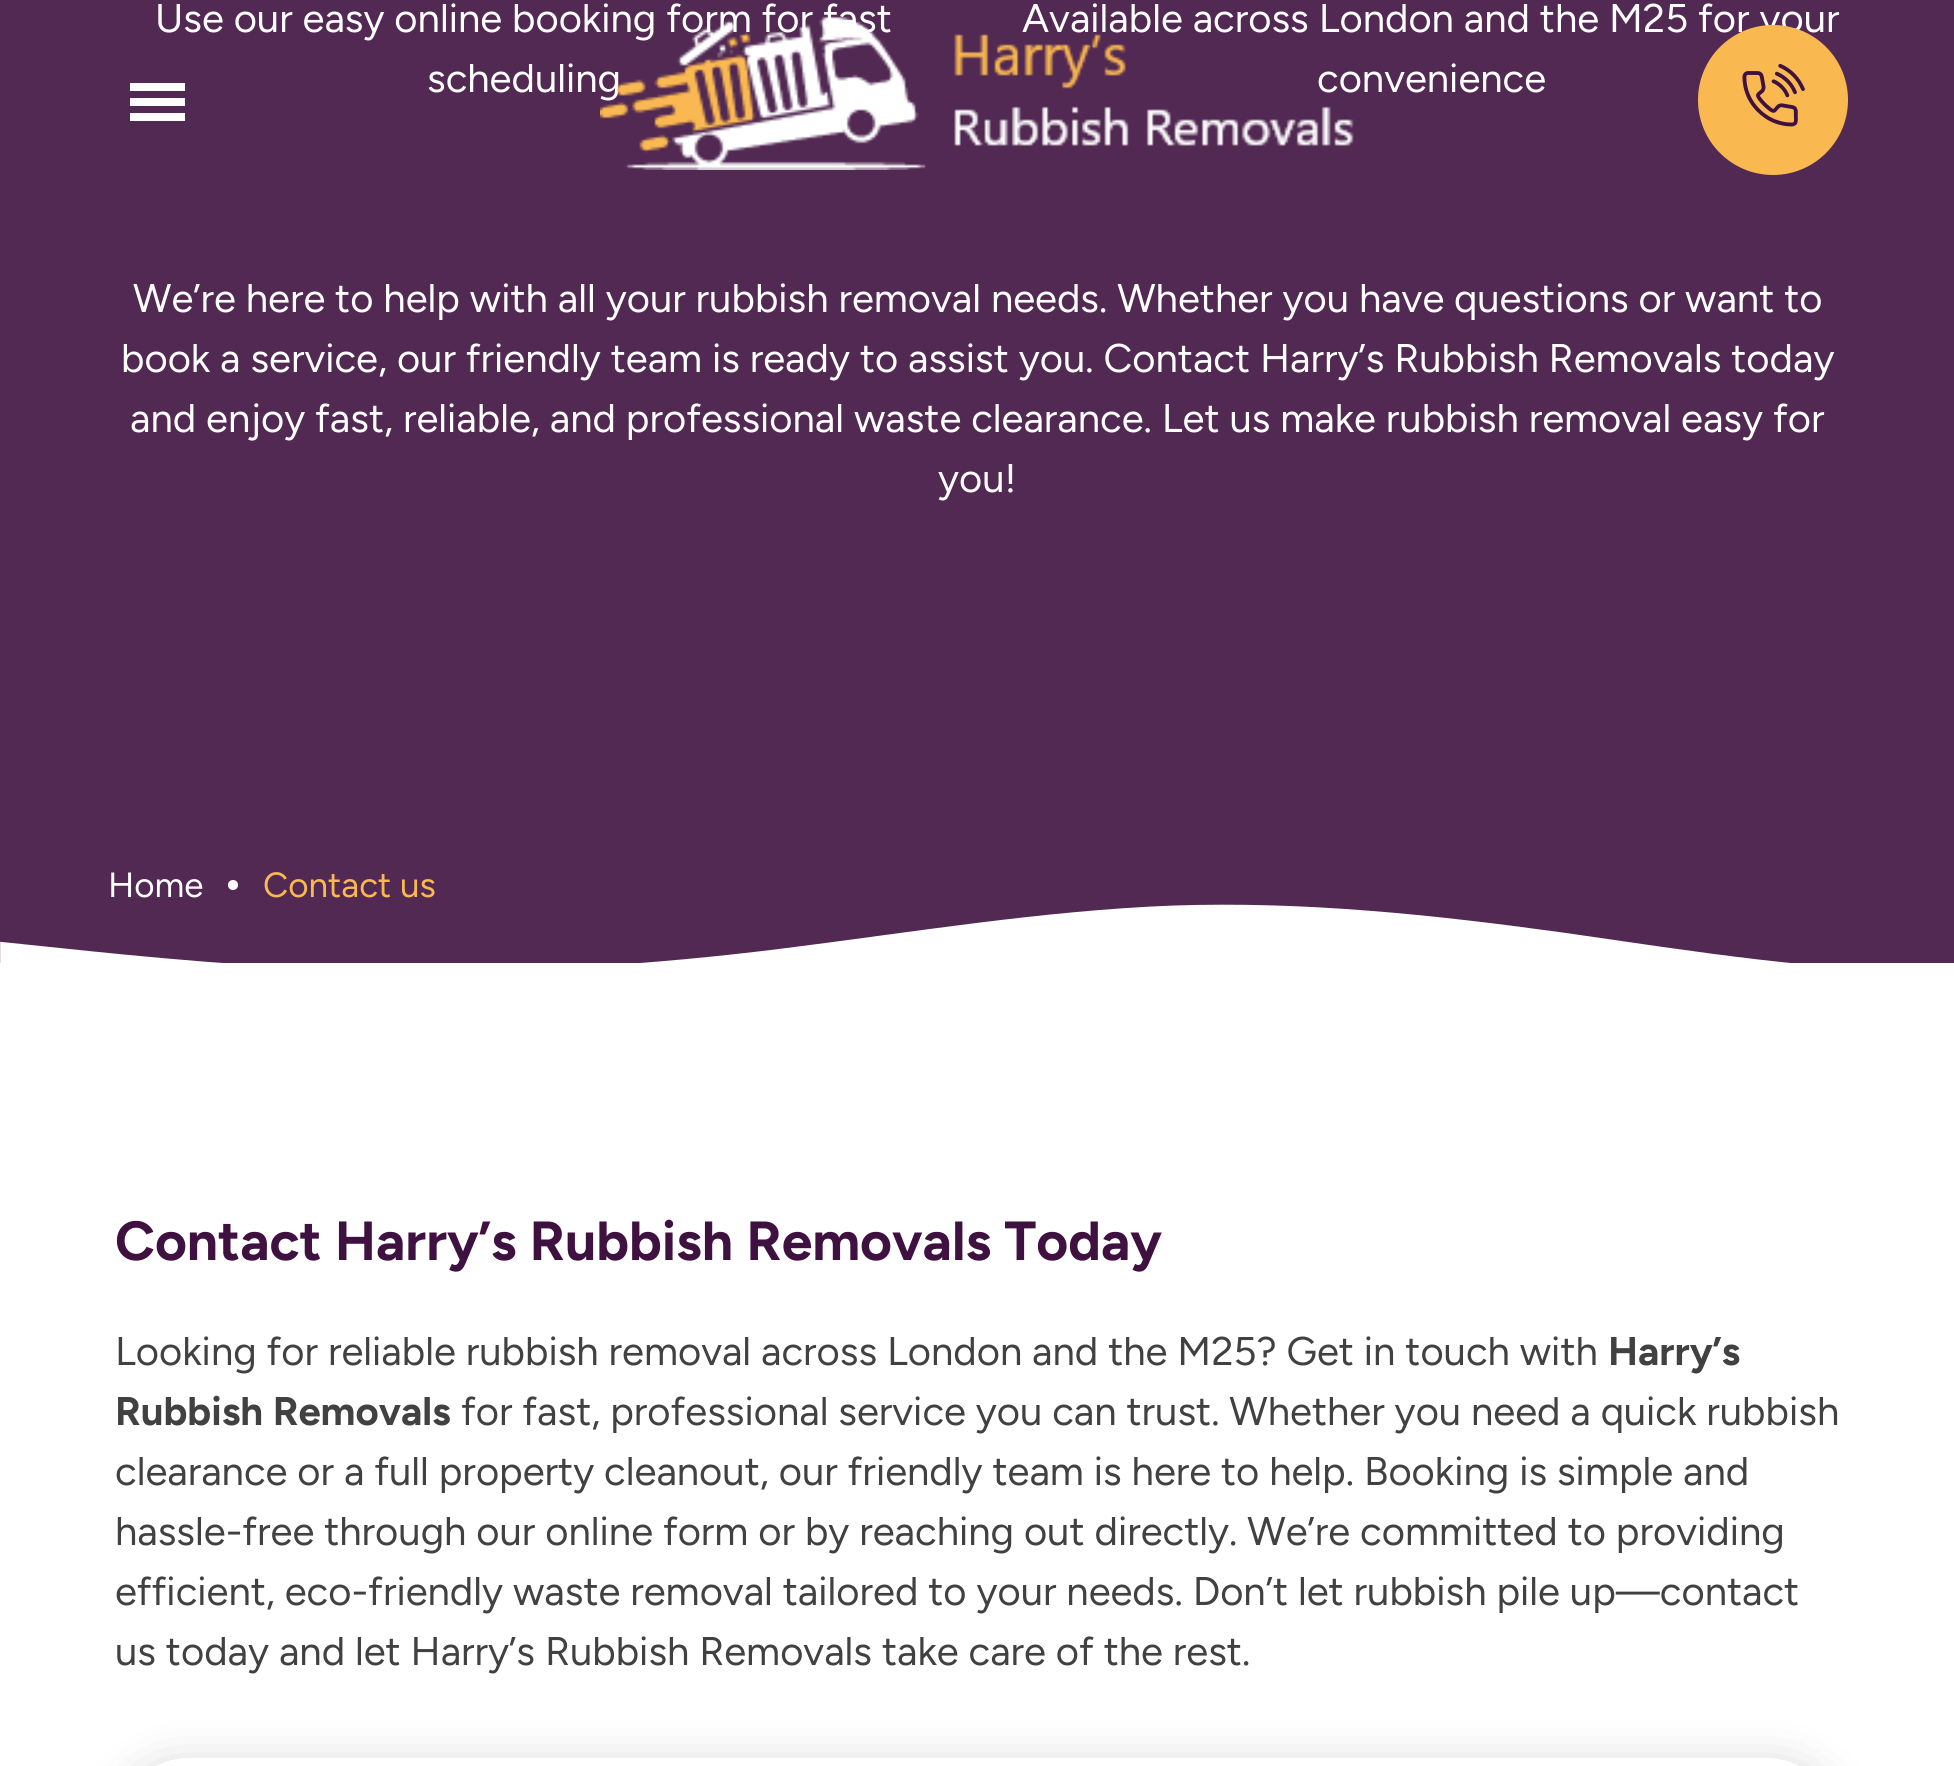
import math
import cairo

surface = cairo.ImageSurface(cairo.FORMAT_RGB24, 1954, 1766)
cr = cairo.Context(surface)
options = cairo.FontOptions()
options.set_hint_metrics(cairo.HINT_METRICS_OFF)
options.set_hint_style(cairo.HINT_STYLE_NONE)
cr.set_font_options(options)
cr.set_miter_limit(4)


def rgb(code):
    cr.set_source_rgb(*(v / 255 for v in bytes.fromhex(code[-6:])))


def rrect(x, y, w, h, r):
    cr.new_sub_path()
    for i, (u, v) in enumerate([(x + w - r, y + h - r), (x + r, y + h - r), (x + r, y + r), (x + w - r, y + r)]):
        cr.arc(u, v, r, i * math.pi / 2, (i + 1) * math.pi / 2)
    cr.close_path()


def soft_shadow(x, y, w, h, r, blur, alpha):
    cr.push_group_with_content(cairo.CONTENT_ALPHA)
    cr.set_operator(cairo.OPERATOR_SOURCE)
    for i in range(15, -16, -2):
        e = blur * i / 6
        if min(w, h) + 2 * e > 0:
            cr.set_source_rgba(0, 0, 0, alpha * math.erfc((i - 1) / 8.5) / 2)
            rrect(x - e, y - e, w + 2 * e, h + 2 * e, max(0, min(r + e + blur * .6, min(w, h) / 2 + e)))
            cr.fill()
    cr.mask(cr.pop_group())


def image(path, x, y, w, h):
    cr.save()
    cr.set_source_surface(cairo.ImageSurface.create_from_png(path), x, y)
    cr.rectangle(x, y, w, h)
    cr.fill()
    cr.restore()


rgb("#ffffff")
cr.paint()
rgb("#522953")
cr.rectangle(0, 0, 1954, 963)
cr.fill()
rgb("#ffffff")
cr.arc(233, 885, 5, 0, 2 * math.pi)
cr.fill()
for x, y, w, h, color in [
    (130, 83, 55, 8, "#ffffff"),
    (130, 98, 55, 8, "#ffffff"),
    (130, 113, 55, 8, "#ffffff"),
]:
    rgb(color)
    cr.rectangle(x, y, w, h)
    cr.fill()
image("img/3.png", 0, 904, 1791, 59)
cr.save()
cr.set_fill_rule(cairo.FILL_RULE_EVEN_ODD)
cr.new_path()
cr.move_to(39, 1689)
cr.line_to(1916, 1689)
cr.line_to(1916, 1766)
cr.line_to(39, 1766)
cr.close_path()
cr.move_to(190, 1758)
cr.line_to(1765, 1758)
cr.curve_to(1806.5, 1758, 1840, 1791.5, 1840, 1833)
cr.line_to(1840, 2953)
cr.curve_to(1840, 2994.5, 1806.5, 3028, 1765, 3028)
cr.line_to(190, 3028)
cr.curve_to(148.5, 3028, 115, 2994.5, 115, 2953)
cr.line_to(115, 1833)
cr.curve_to(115, 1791.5, 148.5, 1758, 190, 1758)
cr.close_path()
cr.clip()
rgb("#000000")
soft_shadow(115, 1765, 1725, 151, 75, 25, 0.16)
cr.restore()
cr.select_font_face("Figtree")
cr.set_font_size(40)
for x, y, s in [
    (155, 32, "Use our easy online booking form for fast"),
    (427, 92, "scheduling"),
    (1022, 32, "Available across London and the M25 for your"),
    (1317, 92, "convenience"),
    (133, 312, "We’re here to help with all your rubbish removal needs. Whether you have questions or want to"),
    (121, 372, "book a service, our friendly team is ready to assist you. Contact Harry’s Rubbish Removals today"),
    (130, 432, "and enjoy fast, reliable, and professional waste clearance. Let us make rubbish removal easy for"),
    (938, 492, "you!"),
]:
    cr.move_to(x, y)
    cr.show_text(s)
cr.set_font_size(35)
cr.move_to(108, 897)
cr.show_text("Home")
rgb("#f9b850")
cr.move_to(263, 897)
cr.show_text("Contact us")
image("img/1.png", 600, 16, 754, 154)
cr.arc(1773, 100, 75, 0, 2 * math.pi)
cr.fill()
image("img/2.png", 1742, 63, 63, 64)
cr.select_font_face("Figtree", cairo.FONT_SLANT_NORMAL, cairo.FONT_WEIGHT_BOLD)
cr.set_font_size(55)
rgb("#3f1140")
cr.move_to(115, 1260)
cr.show_text("Contact Harry’s Rubbish Removals Today")
cr.select_font_face("Figtree")
cr.set_font_size(40)
rgb("#414141")
cr.move_to(115, 1365)
cr.show_text("Looking for reliable rubbish removal across London and the M25? Get in touch with")
cr.select_font_face("Figtree", cairo.FONT_SLANT_NORMAL, cairo.FONT_WEIGHT_BOLD)
cr.move_to(1608, 1365)
cr.show_text("Harry’s")
cr.move_to(115, 1425)
cr.show_text("Rubbish Removals")
cr.select_font_face("Figtree")
for x, y, s in [
    (461, 1425, "for fast, professional service you can trust. Whether you need a quick rubbish"),
    (115, 1485, "clearance or a full property cleanout, our friendly team is here to help. Booking is simple and"),
    (115, 1545, "hassle-free through our online form or by reaching out directly. We’re committed to providing"),
    (115, 1605, "efficient, eco-friendly waste removal tailored to your needs. Don’t let rubbish pile up—contact"),
    (115, 1665, "us today and let Harry’s Rubbish Removals take care of the rest."),
]:
    cr.move_to(x, y)
    cr.show_text(s)
surface.write_to_png("page.png")
